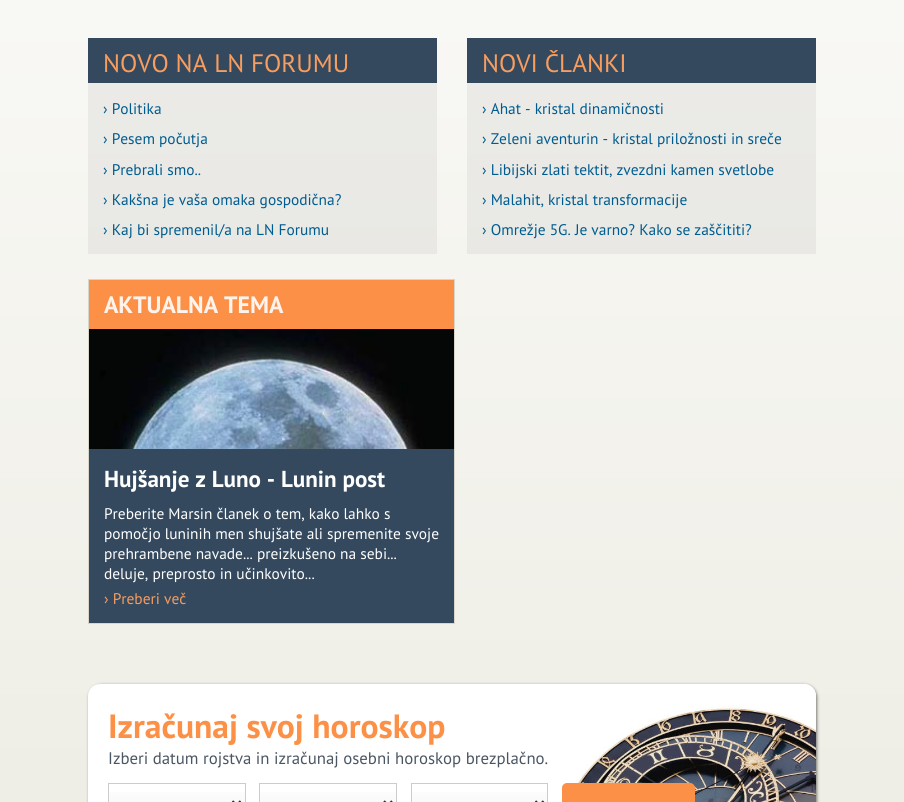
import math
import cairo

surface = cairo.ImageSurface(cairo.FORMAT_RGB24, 904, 802)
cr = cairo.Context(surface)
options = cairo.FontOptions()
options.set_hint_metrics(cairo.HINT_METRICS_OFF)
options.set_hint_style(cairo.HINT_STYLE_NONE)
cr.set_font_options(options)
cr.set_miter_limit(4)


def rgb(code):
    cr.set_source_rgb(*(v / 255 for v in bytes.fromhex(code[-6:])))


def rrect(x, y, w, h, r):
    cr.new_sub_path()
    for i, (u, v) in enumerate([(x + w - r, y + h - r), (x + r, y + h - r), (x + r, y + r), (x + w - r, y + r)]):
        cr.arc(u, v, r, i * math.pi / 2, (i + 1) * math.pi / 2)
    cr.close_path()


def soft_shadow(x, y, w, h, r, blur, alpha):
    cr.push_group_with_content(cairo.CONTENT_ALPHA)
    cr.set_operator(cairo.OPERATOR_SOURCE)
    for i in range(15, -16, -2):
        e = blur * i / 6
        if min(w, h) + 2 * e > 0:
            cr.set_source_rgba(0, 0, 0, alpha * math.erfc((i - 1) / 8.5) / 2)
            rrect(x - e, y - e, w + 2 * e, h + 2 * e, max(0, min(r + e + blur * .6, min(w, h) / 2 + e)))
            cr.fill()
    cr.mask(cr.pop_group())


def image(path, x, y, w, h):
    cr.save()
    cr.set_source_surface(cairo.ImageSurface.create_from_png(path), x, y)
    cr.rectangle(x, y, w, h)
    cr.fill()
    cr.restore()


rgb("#ffffff")
cr.paint()
gradient = cairo.LinearGradient(452, 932, 452, -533)
gradient.add_color_stop_rgba(0, 0.929, 0.925, 0.89, 1)
gradient.add_color_stop_rgba(1, 1, 1, 1, 1)
cr.set_source(gradient)
cr.rectangle(0, 0, 904, 802)
cr.fill()
gradient = cairo.LinearGradient(452, 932, 452, -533)
gradient.add_color_stop_rgba(0, 0.882, 0.878, 0.847, 1)
gradient.add_color_stop_rgba(1, 0.949, 0.949, 0.949, 1)
cr.set_source(gradient)
cr.rectangle(467, 83, 349, 171)
cr.fill()
cr.rectangle(88, 83, 349, 171)
cr.fill()
for x, y, w, h, color in [
    (88, 38, 349, 45, "#34495e"),
    (467, 38, 349, 45, "#34495e"),
    (89, 449, 365, 174, "#34495e"),
]:
    rgb(color)
    cr.rectangle(x, y, w, h)
    cr.fill()
cr.rectangle(88.5, 279.5, 366, 344)
rgb("#d8d6cb")
cr.set_line_width(1)
cr.stroke()
rgb("#fc9046")
cr.rectangle(89, 280, 365, 49)
cr.fill()
image("img/1.png", 89, 329, 365, 120)
rgb("#000000")
soft_shadow(89, 685, 728, 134, 12, 1.5, 0.5)
rgb("#ffffff")
rrect(88, 684, 728, 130, 12)
cr.fill()
image("img/2.png", 567, 684, 249, 118)
gradient = cairo.LinearGradient(177, 784, 177, 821)
gradient.add_color_stop_rgba(0, 1, 1, 1, 1)
gradient.add_color_stop_rgba(1, 0.953, 0.953, 0.953, 1)
cr.set_source(gradient)
cr.rectangle(109, 792, 136, 10)
cr.fill()
cr.rectangle(108.5, 783.5, 137, 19)
rgb("#cccccc")
cr.stroke()
cr.new_path()
cr.move_to(232.5, 801)
cr.line_to(236.5, 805)
cr.line_to(240.5, 801)
rgb("#333333")
cr.set_line_width(2)
cr.stroke()
gradient = cairo.LinearGradient(328, 784, 328, 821)
gradient.add_color_stop_rgba(0, 1, 1, 1, 1)
gradient.add_color_stop_rgba(1, 0.953, 0.953, 0.953, 1)
cr.set_source(gradient)
cr.rectangle(260, 792, 136, 10)
cr.fill()
cr.rectangle(259.5, 783.5, 137, 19)
rgb("#cccccc")
cr.set_line_width(1)
cr.stroke()
cr.new_path()
cr.move_to(384, 801)
cr.line_to(388, 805)
cr.line_to(392, 801)
rgb("#333333")
cr.set_line_width(2)
cr.stroke()
gradient = cairo.LinearGradient(480, 784, 480, 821)
gradient.add_color_stop_rgba(0, 1, 1, 1, 1)
gradient.add_color_stop_rgba(1, 0.953, 0.953, 0.953, 1)
cr.set_source(gradient)
cr.rectangle(412, 792, 135, 10)
cr.fill()
cr.rectangle(411.5, 783.5, 136, 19)
rgb("#cccccc")
cr.set_line_width(1)
cr.stroke()
cr.new_path()
cr.move_to(535.5, 801)
cr.line_to(539.5, 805)
cr.line_to(543.5, 801)
rgb("#333333")
cr.set_line_width(2)
cr.stroke()
rgb("#fc9046")
rrect(562, 783, 133, 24, 5)
cr.fill()
cr.select_font_face("PT Sans")
cr.set_font_size(25.25)
rgb("#f89d5e")
cr.move_to(103, 72)
cr.show_text("NOVO NA LN FORUMU")
cr.set_font_size(15.4)
rgb("#005c8f")
for x, y, s in [
    (103, 114, "› Politika"),
    (103, 144, "› Pesem počutja"),
    (103, 175, "› Prebrali smo.."),
    (103, 205, "› Kakšna je vaša omaka gospodična?"),
    (103, 235, "› Kaj bi spremenil/a na LN Forumu"),
]:
    cr.move_to(x, y)
    cr.show_text(s)
cr.set_font_size(25.25)
rgb("#f89d5e")
cr.move_to(482, 72)
cr.show_text("NOVI ČLANKI")
cr.set_font_size(15.4)
rgb("#005c8f")
for x, y, s in [
    (482, 114, "› Ahat - kristal dinamičnosti"),
    (482, 144, "› Zeleni aventurin - kristal priložnosti in sreče"),
    (482, 175, "› Libijski zlati tektit, zvezdni kamen svetlobe"),
    (482, 205, "› Malahit, kristal transformacije"),
    (482, 235, "› Omrežje 5G. Je varno? Kako se zaščititi?"),
]:
    cr.move_to(x, y)
    cr.show_text(s)
cr.select_font_face("PT Sans", cairo.FONT_SLANT_NORMAL, cairo.FONT_WEIGHT_BOLD)
cr.set_font_size(23.75)
rgb("#fff4ed")
cr.move_to(104, 313)
cr.show_text("AKTUALNA TEMA")
cr.set_font_size(23.1)
rgb("#ffffff")
cr.move_to(104, 487)
cr.show_text("Hujšanje z Luno - Lunin post")
cr.select_font_face("PT Sans")
cr.set_font_size(15.4)
for x, y, s in [
    (104, 519, "Preberite Marsin članek o tem, kako lahko s"),
    (104, 539, "pomočjo luninih men shujšate ali spremenite svoje"),
    (104, 559, "prehrambene navade... preizkušeno na sebi..."),
    (104, 579, "deluje, preprosto in učinkovito..."),
]:
    cr.move_to(x, y)
    cr.show_text(s)
rgb("#f89d5e")
cr.move_to(104, 604)
cr.show_text("› Preberi več")
cr.select_font_face("PT Sans", cairo.FONT_SLANT_NORMAL, cairo.FONT_WEIGHT_BOLD)
cr.set_font_size(33.6)
rgb("#fc9046")
cr.move_to(108, 738)
cr.show_text("Izračunaj svoj horoskop")
cr.select_font_face("PT Sans")
cr.set_font_size(16.8)
rgb("#4b5663")
cr.move_to(108, 764)
cr.show_text("Izberi datum rojstva in izračunaj osebni horoskop brezplačno.")
surface.write_to_png("page.png")
